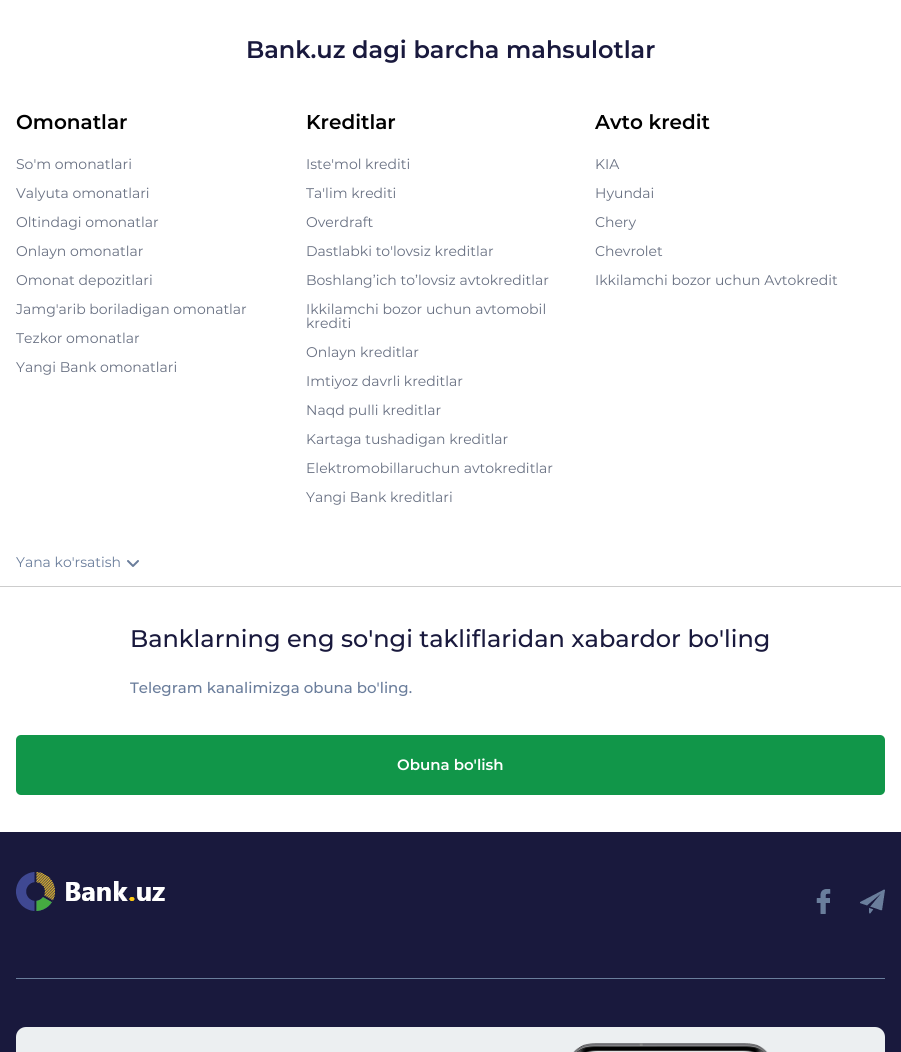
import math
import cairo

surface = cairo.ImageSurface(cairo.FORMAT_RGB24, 901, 1052)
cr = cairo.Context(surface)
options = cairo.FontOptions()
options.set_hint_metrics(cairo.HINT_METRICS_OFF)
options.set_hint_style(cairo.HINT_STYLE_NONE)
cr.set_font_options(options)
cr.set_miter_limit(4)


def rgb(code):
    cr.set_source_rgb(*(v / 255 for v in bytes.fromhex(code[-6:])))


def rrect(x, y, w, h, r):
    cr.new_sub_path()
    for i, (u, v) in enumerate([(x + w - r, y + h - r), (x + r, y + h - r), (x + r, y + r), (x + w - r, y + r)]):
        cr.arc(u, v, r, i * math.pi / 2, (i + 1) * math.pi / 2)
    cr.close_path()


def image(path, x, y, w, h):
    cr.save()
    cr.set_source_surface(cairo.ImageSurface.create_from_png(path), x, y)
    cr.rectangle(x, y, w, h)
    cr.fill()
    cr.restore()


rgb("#ffffff")
cr.paint()
rgb("#cdcdcd")
cr.rectangle(0, 586, 901, 1)
cr.fill()
image("img/1.png", 127, 560, 12, 7)
rgb("#119649")
rrect(16, 735, 869, 60, 5)
cr.fill()
rgb("#19193d")
cr.rectangle(0, 832, 901, 220)
cr.fill()
rgb("#6a7e9c")
cr.rectangle(16, 978, 869, 1)
cr.fill()
image("img/2.png", 16, 872, 149, 39)
image("img/3.png", 816, 889, 15, 25)
image("img/4.png", 860, 889, 25, 25)
rgb("#eceff1")
rrect(16, 1027, 869, 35, 10)
cr.fill()
image("img/5.png", 573, 1043, 195, 9)
cr.select_font_face("Montserrat SemiBold")
cr.set_font_size(24)
rgb("#19193d")
cr.move_to(246, 58)
cr.show_text("Bank.uz dagi barcha mahsulotlar")
cr.set_font_size(20)
rgb("#000000")
cr.move_to(16, 129)
cr.show_text("Omonatlar")
cr.select_font_face("Montserrat")
cr.set_font_size(14)
rgb("#687082")
for x, y, s in [
    (16, 169, "So'm omonatlari"),
    (16, 198, "Valyuta omonatlari"),
    (16, 227, "Oltindagi omonatlar"),
    (16, 256, "Onlayn omonatlar"),
    (16, 285, "Omonat depozitlari"),
    (16, 314, "Jamg'arib boriladigan omonatlar"),
    (16, 343, "Tezkor omonatlar"),
    (16, 372, "Yangi Bank omonatlari"),
]:
    cr.move_to(x, y)
    cr.show_text(s)
cr.select_font_face("Montserrat SemiBold")
cr.set_font_size(20)
rgb("#000000")
cr.move_to(306, 129)
cr.show_text("Kreditlar")
cr.select_font_face("Montserrat")
cr.set_font_size(14)
rgb("#687082")
for x, y, s in [
    (306, 169, "Iste'mol krediti"),
    (306, 198, "Ta'lim krediti"),
    (306, 227, "Overdraft"),
    (306, 256, "Dastlabki to'lovsiz kreditlar"),
    (306, 285, "Boshlang’ich to’lovsiz avtokreditlar"),
    (306, 314, "Ikkilamchi bozor uchun avtomobil"),
    (306, 328, "krediti"),
    (306, 357, "Onlayn kreditlar"),
    (306, 386, "Imtiyoz davrli kreditlar"),
    (306, 415, "Naqd pulli kreditlar"),
    (306, 444, "Kartaga tushadigan kreditlar"),
    (306, 473, "Elektromobillaruchun avtokreditlar"),
    (306, 502, "Yangi Bank kreditlari"),
]:
    cr.move_to(x, y)
    cr.show_text(s)
cr.select_font_face("Montserrat SemiBold")
cr.set_font_size(20)
rgb("#000000")
cr.move_to(595, 129)
cr.show_text("Avto kredit")
cr.select_font_face("Montserrat")
cr.set_font_size(14)
rgb("#687082")
for x, y, s in [
    (595, 169, "KIA"),
    (595, 198, "Hyundai"),
    (595, 227, "Chery"),
    (595, 256, "Chevrolet"),
    (595, 285, "Ikkilamchi bozor uchun Avtokredit"),
]:
    cr.move_to(x, y)
    cr.show_text(s)
rgb("#6a7d9b")
cr.move_to(16, 567)
cr.show_text("Yana ko'rsatish")
cr.select_font_face("Montserrat Medium")
cr.set_font_size(24)
rgb("#19193d")
cr.move_to(130, 647)
cr.show_text("Banklarning eng so'ngi takliflaridan xabardor bo'ling")
cr.set_font_size(15)
rgb("#6a7d9b")
cr.move_to(130, 693)
cr.show_text("Telegram kanalimizga obuna bo'ling.")
cr.select_font_face("Montserrat SemiBold")
rgb("#ffffff")
cr.move_to(397, 770)
cr.show_text("Obuna bo'lish")
surface.write_to_png("page.png")
